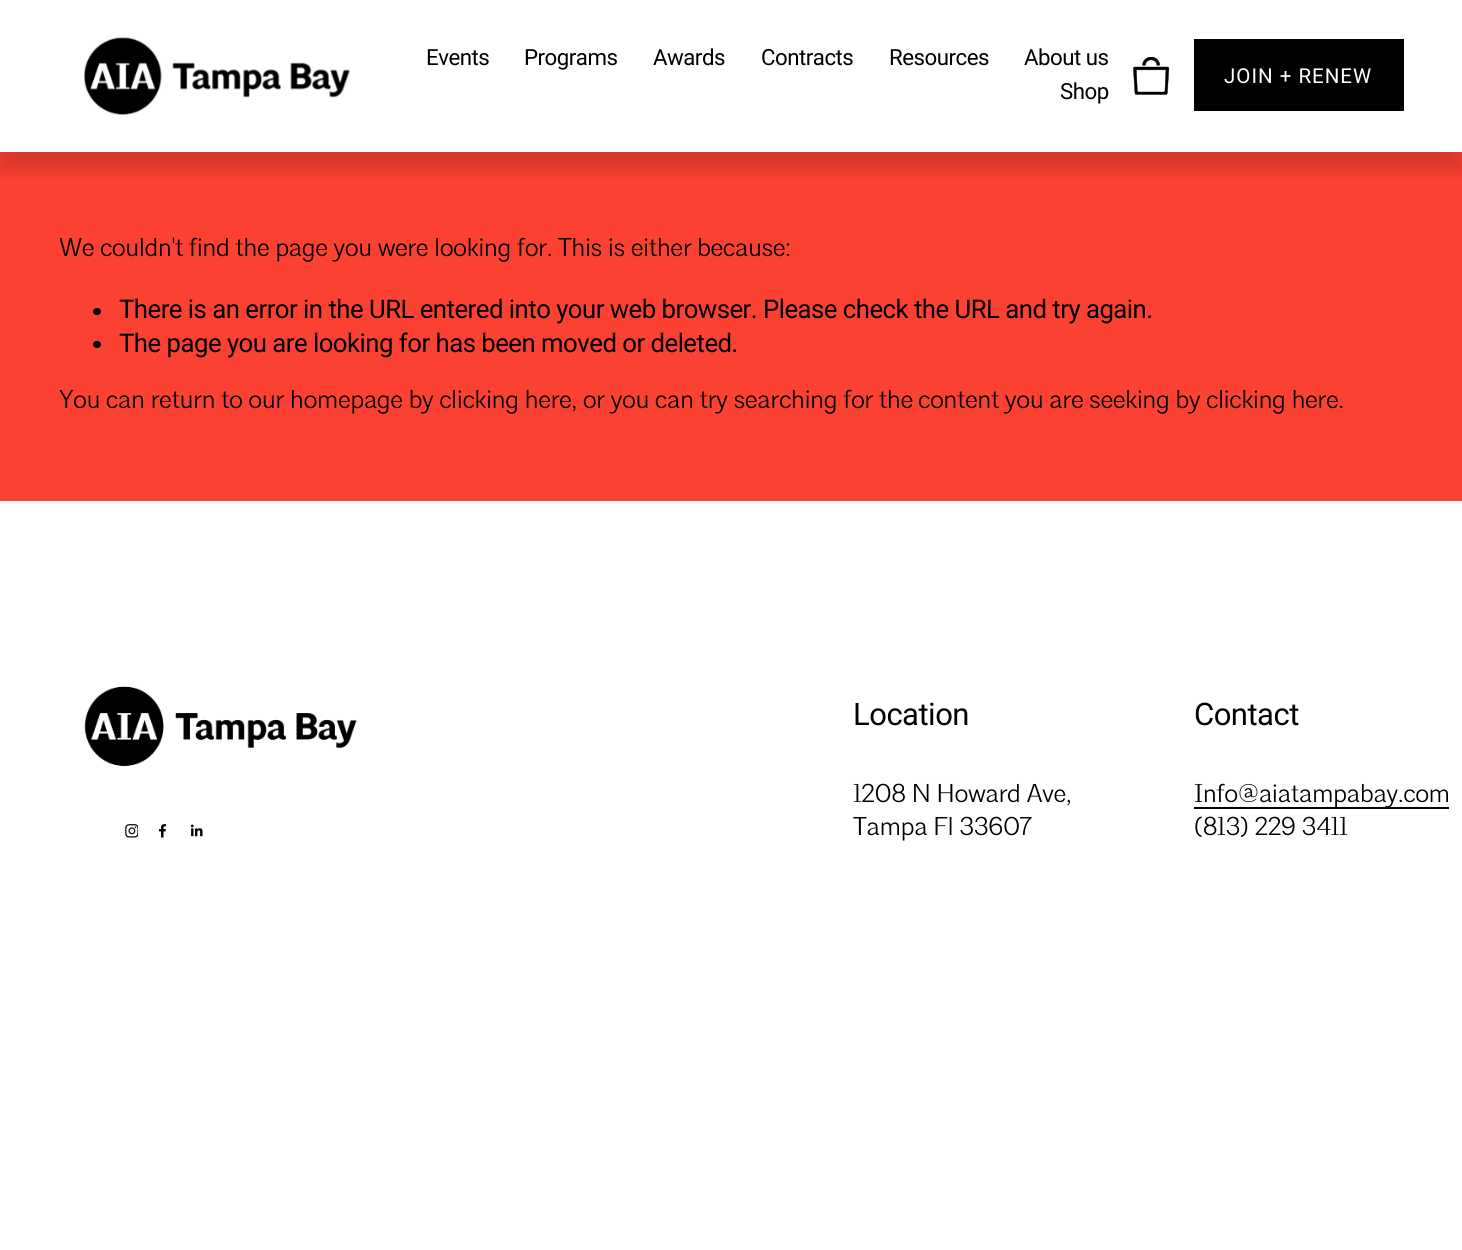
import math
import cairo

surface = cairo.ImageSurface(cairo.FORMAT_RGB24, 1462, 1250)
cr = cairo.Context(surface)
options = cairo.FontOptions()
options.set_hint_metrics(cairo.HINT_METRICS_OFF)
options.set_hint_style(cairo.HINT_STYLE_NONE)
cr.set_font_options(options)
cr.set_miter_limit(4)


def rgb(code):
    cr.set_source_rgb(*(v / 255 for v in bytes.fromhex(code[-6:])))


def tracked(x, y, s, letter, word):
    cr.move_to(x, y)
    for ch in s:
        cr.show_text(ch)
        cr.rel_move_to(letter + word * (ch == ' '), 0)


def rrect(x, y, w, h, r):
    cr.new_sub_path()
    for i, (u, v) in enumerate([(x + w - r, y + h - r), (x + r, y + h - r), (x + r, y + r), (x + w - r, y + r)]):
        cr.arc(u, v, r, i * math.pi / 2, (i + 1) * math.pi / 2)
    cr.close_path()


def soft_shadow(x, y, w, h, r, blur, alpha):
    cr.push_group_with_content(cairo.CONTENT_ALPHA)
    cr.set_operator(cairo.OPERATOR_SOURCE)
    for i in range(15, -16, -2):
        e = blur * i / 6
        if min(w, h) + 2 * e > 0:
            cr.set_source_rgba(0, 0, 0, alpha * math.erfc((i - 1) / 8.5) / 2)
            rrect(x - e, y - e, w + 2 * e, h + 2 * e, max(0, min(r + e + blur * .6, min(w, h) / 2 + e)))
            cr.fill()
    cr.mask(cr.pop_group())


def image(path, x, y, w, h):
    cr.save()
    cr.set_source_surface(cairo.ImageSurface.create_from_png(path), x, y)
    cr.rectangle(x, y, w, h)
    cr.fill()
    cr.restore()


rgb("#fa4132")
cr.paint()
rgb("#ffffff")
cr.rectangle(2, 2, 1459, 148)
cr.fill()
cr.save()
cr.rectangle(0, 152, 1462, 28)
cr.clip()
rgb("#000000")
soft_shadow(0, 18, 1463, 152, 0, 9, 0.15)
cr.restore()
cr.rectangle(1, 1, 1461, 150)
cr.stroke()
image("img/1.png", 83, 37, 267, 78)
image("img/2.png", 1133, 57, 37, 38)
rgb("#000000")
cr.rectangle(1194, 39, 210, 72)
cr.fill()
rrect(93, 308, 8, 7, 3.5)
cr.fill()
rrect(93, 341, 8, 7, 3.5)
cr.fill()
rgb("#ffffff")
cr.rectangle(0, 501, 1462, 749)
cr.fill()
image("img/3.png", 84, 686, 273, 81)
rgb("#000000")
cr.rectangle(1194, 807, 255, 2)
cr.fill()
image("img/4.png", 125, 824, 13, 14)
image("img/5.png", 159, 824, 7, 14)
image("img/6.png", 190, 824, 13, 13)
cr.select_font_face("Roboto")
cr.set_font_size(22.25)
for x, y, s in [
    (426, 65, "Events"),
    (524, 65, "Programs"),
    (653, 65, "Awards"),
    (761, 65, "Contracts"),
    (889, 65, "Resources"),
    (1024, 65, "About us"),
    (1060, 99, "Shop"),
]:
    tracked(x, y, s, -0.5, 0)
cr.set_font_size(20.5)
rgb("#ffffff")
tracked(1224, 83, "JOIN + RENEW", 1, 0)
cr.select_font_face("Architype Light")
cr.set_font_size(25.75)
rgb("#000000")
tracked(59, 256, "We couldn't find the page you were looking for. This is either because:", -0.52, 0)
cr.select_font_face("Roboto")
tracked(119, 318, "There is an error in the URL entered into your web browser. Please check the URL and try again.", -0.52, 0)
tracked(119, 352, "The page you are looking for has been moved or deleted.", -0.52, 0)
cr.select_font_face("Architype Light")
tracked(59, 408, "You can return to our homepage by clicking here, or you can try searching for the", -0.52, 0)
tracked(918, 408, "content you are seeking by clicking here.", -0.52, 0)
cr.select_font_face("Roboto")
cr.set_font_size(31)
tracked(853, 725, "Location", -0.5, 0)
cr.select_font_face("Architype Light")
cr.set_font_size(25.75)
tracked(853, 802, "1208 N Howard Ave,", -0.52, 0)
tracked(853, 835, "Tampa Fl 33607", -0.52, 0)
cr.select_font_face("Roboto")
cr.set_font_size(31)
tracked(1194, 725, "Contact", -0.5, 0)
cr.select_font_face("Architype Light")
cr.set_font_size(25.75)
tracked(1194, 802, "Info@aiatampabay.com", -0.52, 0)
tracked(1194, 835, "(813) 229 3411", -0.52, 0)
surface.write_to_png("page.png")
